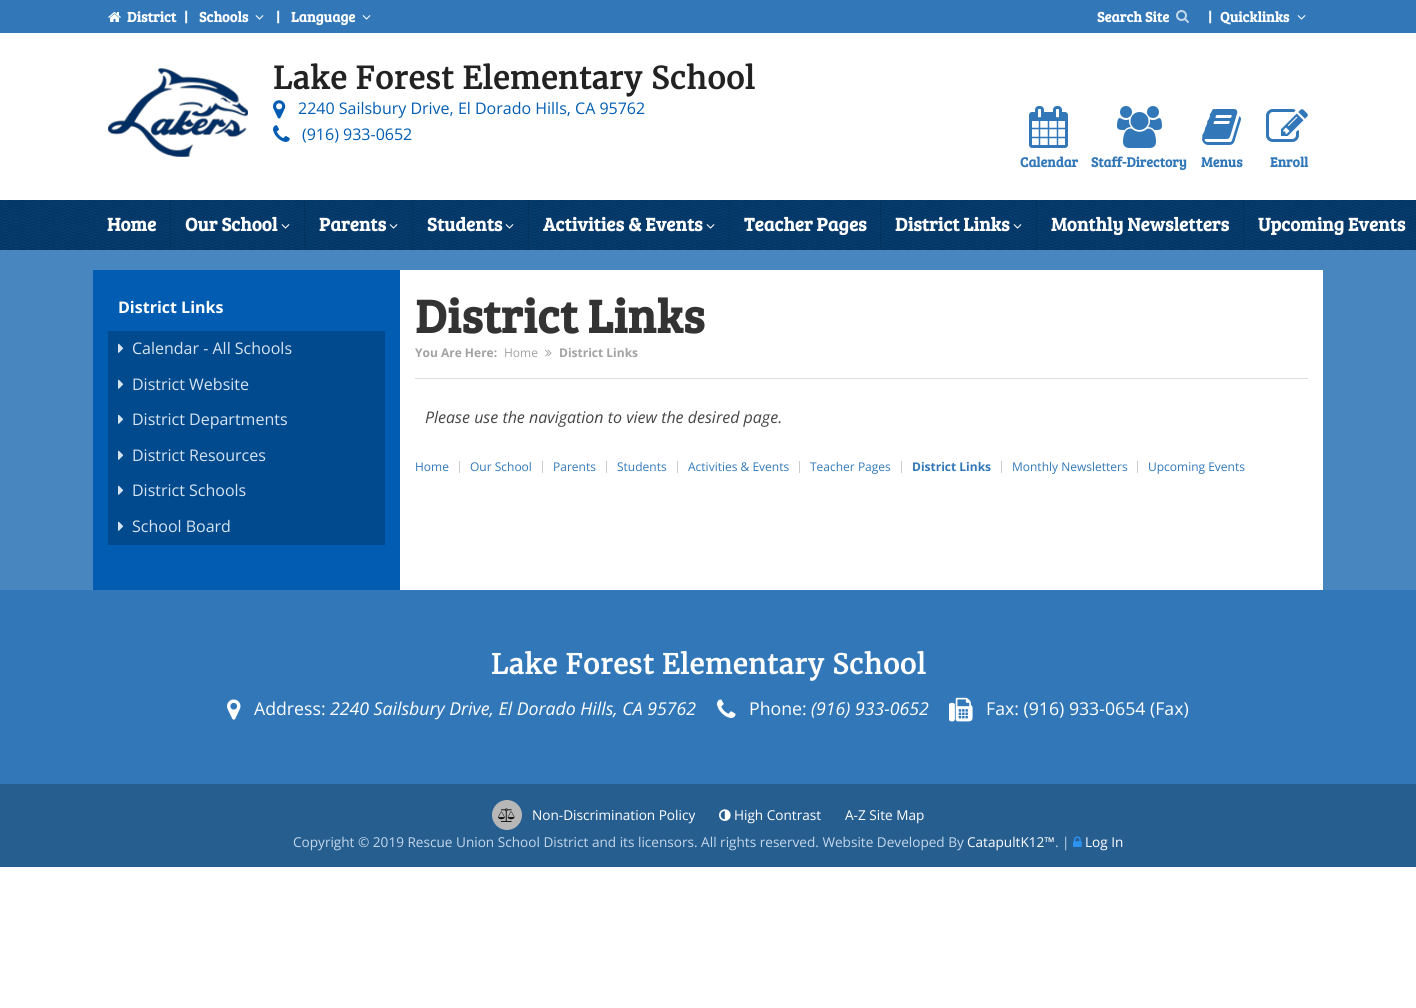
import math
import cairo

surface = cairo.ImageSurface(cairo.FORMAT_RGB24, 1416, 1008)
cr = cairo.Context(surface)
options = cairo.FontOptions()
options.set_hint_metrics(cairo.HINT_METRICS_OFF)
options.set_hint_style(cairo.HINT_STYLE_NONE)
cr.set_font_options(options)
cr.set_miter_limit(4)


def rgb(code):
    cr.set_source_rgb(*(v / 255 for v in bytes.fromhex(code[-6:])))


def tracked(x, y, s, letter, word):
    cr.move_to(x, y)
    for ch in s:
        cr.show_text(ch)
        cr.rel_move_to(letter + word * (ch == ' '), 0)


def image(path, x, y, w, h):
    cr.save()
    cr.set_source_surface(cairo.ImageSurface.create_from_png(path), x, y)
    cr.rectangle(x, y, w, h)
    cr.fill()
    cr.restore()


rgb("#ffffff")
cr.paint()
rgb("#3278b8")
cr.rectangle(0, 0, 1416, 33)
cr.fill()
image("img/1.png", 108, 12, 13, 10)
image("img/2.png", 255, 15, 9, 5)
image("img/2.png", 362, 15, 9, 5)
image("img/3.png", 1176, 10, 13, 13)
image("img/2.png", 1297, 15, 9, 5)
image("img/4.png", 108, 68, 140, 89)
image("img/5.png", 273, 100, 13, 19)
image("img/6.png", 273, 125, 17, 17)
image("img/7.png", 1029, 106, 39, 42)
image("img/8.png", 1117, 106, 45, 42)
image("img/9.png", 1202, 109, 39, 36)
image("img/10.png", 1266, 109, 42, 33)
image("img/11.png", 0, 200, 1416, 50)
cr.set_source_rgba(0, 0, 0, 0.1)
cr.rectangle(170, 200, 1, 48)
cr.fill()
cr.rectangle(304, 200, 1, 50)
cr.fill()
image("img/12.png", 281, 224, 9, 5)
cr.rectangle(412, 200, 1, 50)
cr.fill()
image("img/13.png", 389, 224, 9, 5)
cr.rectangle(528, 200, 1, 50)
cr.fill()
image("img/14.png", 505, 224, 9, 5)
cr.rectangle(729, 200, 1, 50)
cr.fill()
image("img/15.png", 706, 224, 9, 5)
cr.rectangle(880, 200, 1, 48)
cr.fill()
cr.rectangle(1036, 200, 1, 50)
cr.fill()
image("img/16.png", 1013, 224, 9, 5)
cr.rectangle(1243, 200, 1, 48)
cr.fill()
rgb("#4786bf")
cr.rectangle(0, 250, 1416, 340)
cr.fill()
rgb("#025db2")
cr.rectangle(93, 270, 307, 320)
cr.fill()
rgb("#024a8e")
cr.rectangle(108, 331, 277, 214)
cr.fill()
image("img/17.png", 118, 343, 6, 10)
image("img/17.png", 118, 379, 6, 10)
image("img/17.png", 118, 414, 6, 10)
image("img/17.png", 118, 450, 6, 10)
image("img/17.png", 118, 485, 6, 10)
image("img/17.png", 118, 521, 6, 10)
rgb("#ffffff")
cr.rectangle(400, 270, 923, 320)
cr.fill()
image("img/18.png", 545, 349, 7, 8)
for x, y, w, h, color in [
    (415, 378, 893, 1, "#dddddd"),
    (459, 461, 1, 12, "#cccccc"),
    (542, 461, 1, 12, "#cccccc"),
    (606, 461, 1, 12, "#cccccc"),
    (677, 461, 1, 12, "#cccccc"),
    (799, 461, 1, 12, "#cccccc"),
    (901, 461, 1, 12, "#cccccc"),
    (1001, 461, 1, 12, "#cccccc"),
    (1137, 461, 1, 12, "#cccccc"),
    (0, 590, 1416, 194, "#3278b8"),
]:
    rgb(color)
    cr.rectangle(x, y, w, h)
    cr.fill()
image("img/19.png", 227, 699, 14, 21)
image("img/20.png", 717, 699, 19, 19)
image("img/21.png", 949, 697, 24, 25)
rgb("#275e90")
cr.rectangle(0, 784, 1416, 83)
cr.fill()
rgb("#b7b7b7")
cr.arc(507, 815, 15, 0, 2 * math.pi)
cr.fill()
image("img/22.png", 498, 808, 17, 14)
image("img/23.png", 719, 809, 12, 12)
image("img/24.png", 1073, 836, 9, 11)
cr.select_font_face("Bree Serif", cairo.FONT_SLANT_NORMAL, cairo.FONT_WEIGHT_BOLD)
cr.set_font_size(14.5)
rgb("#ffffff")
for x, y, s in [
    (127, 22, "District"),
    (184, 22, "|"),
    (199, 22, "Schools"),
    (276, 22, "|"),
    (291, 22, "Language"),
    (1097, 22, "Search Site"),
    (1208, 22, "|"),
    (1220, 22, "Quicklinks"),
]:
    cr.move_to(x, y)
    cr.show_text(s)
cr.select_font_face("Merriweather", cairo.FONT_SLANT_NORMAL, cairo.FONT_WEIGHT_BOLD)
cr.set_font_size(30.4)
rgb("#222222")
tracked(273, 89, "Lake Forest Elementary School", 1, 0)
cr.select_font_face("Open Sans")
cr.set_font_size(16)
rgb("#025db2")
cr.move_to(298, 114)
cr.show_text("2240 Sailsbury Drive, El Dorado Hills, CA 95762")
cr.move_to(302, 140)
cr.show_text("(916) 933-0652")
cr.select_font_face("Bree Serif", cairo.FONT_SLANT_NORMAL, cairo.FONT_WEIGHT_BOLD)
cr.set_font_size(14)
rgb("#3278b8")
for x, y, s in [
    (1020, 167, "Calendar"),
    (1091, 167, "Staff-Directory"),
    (1201, 167, "Menus"),
    (1270, 167, "Enroll"),
]:
    cr.move_to(x, y)
    cr.show_text(s)
cr.set_font_size(19)
rgb("#ffffff")
for x, y, s in [
    (107, 231, "Home"),
    (185, 231, "Our School"),
    (319, 231, "Parents"),
    (427, 231, "Students"),
    (543, 231, "Activities & Events"),
    (744, 231, "Teacher Pages"),
    (895, 231, "District Links"),
    (1051, 231, "Monthly Newsletters"),
    (1258, 231, "Upcoming Events"),
]:
    cr.move_to(x, y)
    cr.show_text(s)
cr.select_font_face("Open Sans", cairo.FONT_SLANT_NORMAL, cairo.FONT_WEIGHT_BOLD)
cr.set_font_size(16)
cr.move_to(118, 313)
cr.show_text("District Links")
cr.select_font_face("Open Sans")
rgb("#d6e4f1")
for x, y, s in [
    (132, 354, "Calendar - All Schools"),
    (132, 390, "District Website"),
    (132, 425, "District Departments"),
    (132, 461, "District Resources"),
    (132, 496, "District Schools"),
    (132, 532, "School Board"),
]:
    cr.move_to(x, y)
    cr.show_text(s)
cr.select_font_face("Bree Serif", cairo.FONT_SLANT_NORMAL, cairo.FONT_WEIGHT_BOLD)
cr.set_font_size(48)
rgb("#333333")
cr.move_to(415, 333)
cr.show_text("District Links")
cr.select_font_face("Open Sans", cairo.FONT_SLANT_NORMAL, cairo.FONT_WEIGHT_BOLD)
cr.set_font_size(12)
rgb("#a2a2a2")
cr.move_to(415, 357)
cr.show_text("You Are Here:")
cr.select_font_face("Open Sans")
cr.move_to(504, 357)
cr.show_text("Home")
cr.select_font_face("Open Sans", cairo.FONT_SLANT_NORMAL, cairo.FONT_WEIGHT_BOLD)
cr.move_to(559, 357)
cr.show_text("District Links")
cr.select_font_face("Open Sans", cairo.FONT_SLANT_ITALIC)
cr.set_font_size(16)
rgb("#454545")
cr.move_to(425, 423)
cr.show_text("Please use the navigation to view the desired page.")
cr.select_font_face("Open Sans")
cr.set_font_size(12)
rgb("#3278b8")
for x, y, s in [
    (415, 471, "Home"),
    (470, 471, "Our School"),
    (553, 471, "Parents"),
    (617, 471, "Students"),
    (688, 471, "Activities & Events"),
    (810, 471, "Teacher Pages"),
]:
    cr.move_to(x, y)
    cr.show_text(s)
cr.select_font_face("Open Sans", cairo.FONT_SLANT_NORMAL, cairo.FONT_WEIGHT_BOLD)
cr.move_to(912, 471)
cr.show_text("District Links")
cr.select_font_face("Open Sans")
cr.move_to(1012, 471)
cr.show_text("Monthly Newsletters")
cr.move_to(1148, 471)
cr.show_text("Upcoming Events")
cr.select_font_face("Merriweather", cairo.FONT_SLANT_NORMAL, cairo.FONT_WEIGHT_BOLD)
cr.set_font_size(27.25)
rgb("#ffffff")
tracked(491, 674, "Lake Forest Elementary School", 1, 0)
cr.select_font_face("Open Sans")
cr.set_font_size(17.7)
cr.move_to(254, 715)
cr.show_text("Address:")
cr.select_font_face("Open Sans", cairo.FONT_SLANT_ITALIC)
cr.move_to(330, 715)
cr.show_text("2240 Sailsbury Drive, El Dorado Hills, CA 95762")
cr.select_font_face("Open Sans")
cr.move_to(749, 715)
cr.show_text("Phone:")
cr.select_font_face("Open Sans", cairo.FONT_SLANT_ITALIC)
cr.move_to(811, 715)
cr.show_text("(916) 933-0652")
cr.select_font_face("Open Sans")
cr.move_to(986, 715)
cr.show_text("Fax: (916) 933-0654 (Fax)")
cr.set_font_size(13.6)
for x, y, s in [
    (532, 820, "Non-Discrimination Policy"),
    (734, 820, "High Contrast"),
    (845, 820, "A-Z Site Map"),
]:
    cr.move_to(x, y)
    cr.show_text(s)
rgb("#c3d7eb")
cr.move_to(293, 847)
cr.show_text("Copyright © 2019 Rescue Union School District and its licensors. All rights reserved. Website Developed By")
rgb("#ffffff")
cr.move_to(967, 847)
cr.show_text("CatapultK12™")
rgb("#c3d7eb")
cr.move_to(1055, 847)
cr.show_text(". |")
rgb("#ffffff")
cr.move_to(1085, 847)
cr.show_text("Log In")
surface.write_to_png("page.png")
